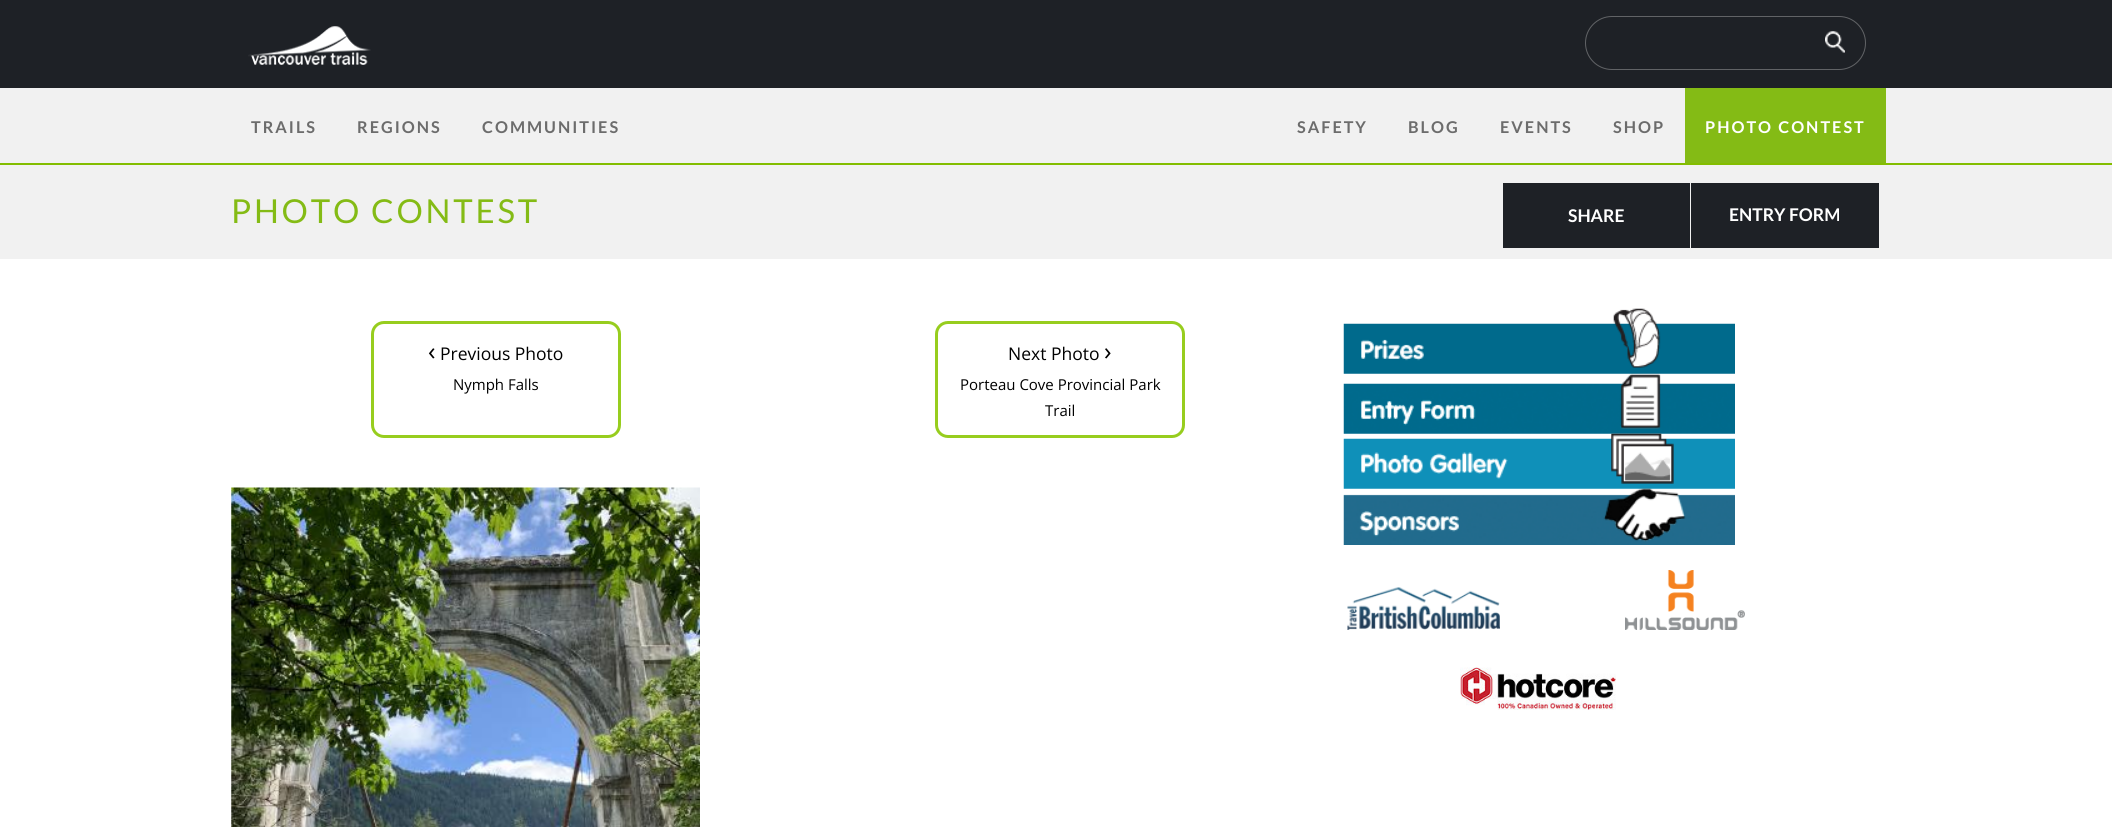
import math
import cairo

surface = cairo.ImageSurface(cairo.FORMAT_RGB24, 2112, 827)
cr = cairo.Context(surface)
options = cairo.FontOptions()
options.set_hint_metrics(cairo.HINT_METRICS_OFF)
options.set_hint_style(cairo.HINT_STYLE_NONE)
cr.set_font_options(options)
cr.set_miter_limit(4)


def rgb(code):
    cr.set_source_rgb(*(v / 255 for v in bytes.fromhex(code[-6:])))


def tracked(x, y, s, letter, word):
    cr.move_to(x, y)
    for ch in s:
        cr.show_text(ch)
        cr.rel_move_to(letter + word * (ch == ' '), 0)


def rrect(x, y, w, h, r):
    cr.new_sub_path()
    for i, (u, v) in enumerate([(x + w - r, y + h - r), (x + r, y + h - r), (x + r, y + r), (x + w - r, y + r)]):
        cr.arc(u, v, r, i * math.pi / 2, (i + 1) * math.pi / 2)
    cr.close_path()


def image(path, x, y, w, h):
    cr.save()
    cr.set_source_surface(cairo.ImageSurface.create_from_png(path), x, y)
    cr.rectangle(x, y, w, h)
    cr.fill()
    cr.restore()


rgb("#ffffff")
cr.paint()
rgb("#1e2126")
cr.rectangle(0, 0, 2112, 88)
cr.fill()
image("img/1.png", 248, 26, 123, 39)
rrect(1585.5, 16.5, 280, 53, 26.5)
rgb("#616366")
cr.set_line_width(1)
cr.stroke()
image("img/2.png", 1825, 31, 20, 22)
for x, y, w, h, color in [
    (0, 88, 2112, 75, "#f1f1f1"),
    (1685, 88, 201, 75, "#84bb15"),
    (0, 163, 2112, 2, "#83bd00"),
    (0, 165, 2112, 94, "#f1f1f1"),
    (1503, 183, 187, 65, "#1e2126"),
    (1691, 183, 188, 65, "#1e2126"),
]:
    rgb(color)
    cr.rectangle(x, y, w, h)
    cr.fill()
rrect(372.5, 322.5, 247, 114, 11.5)
rgb("#97cd1e")
cr.set_line_width(3)
cr.stroke()
rrect(936.5, 322.5, 247, 114, 11.5)
cr.stroke()
image("img/3.png", 231, 487, 469, 340)
image("img/4.png", 1343, 308, 392, 66)
image("img/5.png", 1343, 373, 392, 61)
image("img/6.png", 1343, 433, 392, 56)
image("img/7.png", 1343, 488, 392, 57)
image("img/8.png", 1347, 587, 153, 43)
image("img/9.png", 1625, 570, 120, 60)
image("img/10.png", 1460, 667, 156, 43)
cr.select_font_face("Lato", cairo.FONT_SLANT_NORMAL, cairo.FONT_WEIGHT_BOLD)
cr.set_font_size(16.25)
rgb("#6c6c6c")
for x, y, s in [
    (251, 133, "TRAILS"),
    (357, 133, "REGIONS"),
    (482, 133, "COMMUNITIES"),
    (1297, 133, "SAFETY"),
    (1408, 133, "BLOG"),
    (1500, 133, "EVENTS"),
    (1613, 133, "SHOP"),
]:
    tracked(x, y, s, 2, 0)
rgb("#ffffff")
tracked(1705, 133, "PHOTO CONTEST", 2, 0)
cr.select_font_face("Lato")
cr.set_font_size(33)
rgb("#84bb15")
tracked(231, 223, "PHOTO CONTEST", 2.75, 0)
cr.select_font_face("Lato", cairo.FONT_SLANT_NORMAL, cairo.FONT_WEIGHT_BOLD)
cr.set_font_size(17.5)
rgb("#ffffff")
cr.move_to(1568, 222)
cr.show_text("SHARE")
cr.move_to(1729, 221)
cr.show_text("ENTRY FORM")
cr.select_font_face("Open Sans")
cr.set_font_size(25)
rgb("#000000")
cr.move_to(428, 360)
cr.show_text("‹")
cr.set_font_size(17.5)
cr.move_to(440, 360)
cr.show_text("Previous Photo")
cr.set_font_size(15)
cr.move_to(453, 390)
cr.show_text("Nymph Falls")
cr.set_font_size(17.5)
cr.move_to(1008, 360)
cr.show_text("Next Photo")
cr.set_font_size(25)
cr.move_to(1104, 360)
cr.show_text("›")
cr.set_font_size(15)
cr.move_to(960, 390)
cr.show_text("Porteau Cove Provincial Park")
cr.move_to(1045, 416)
cr.show_text("Trail")
surface.write_to_png("page.png")
